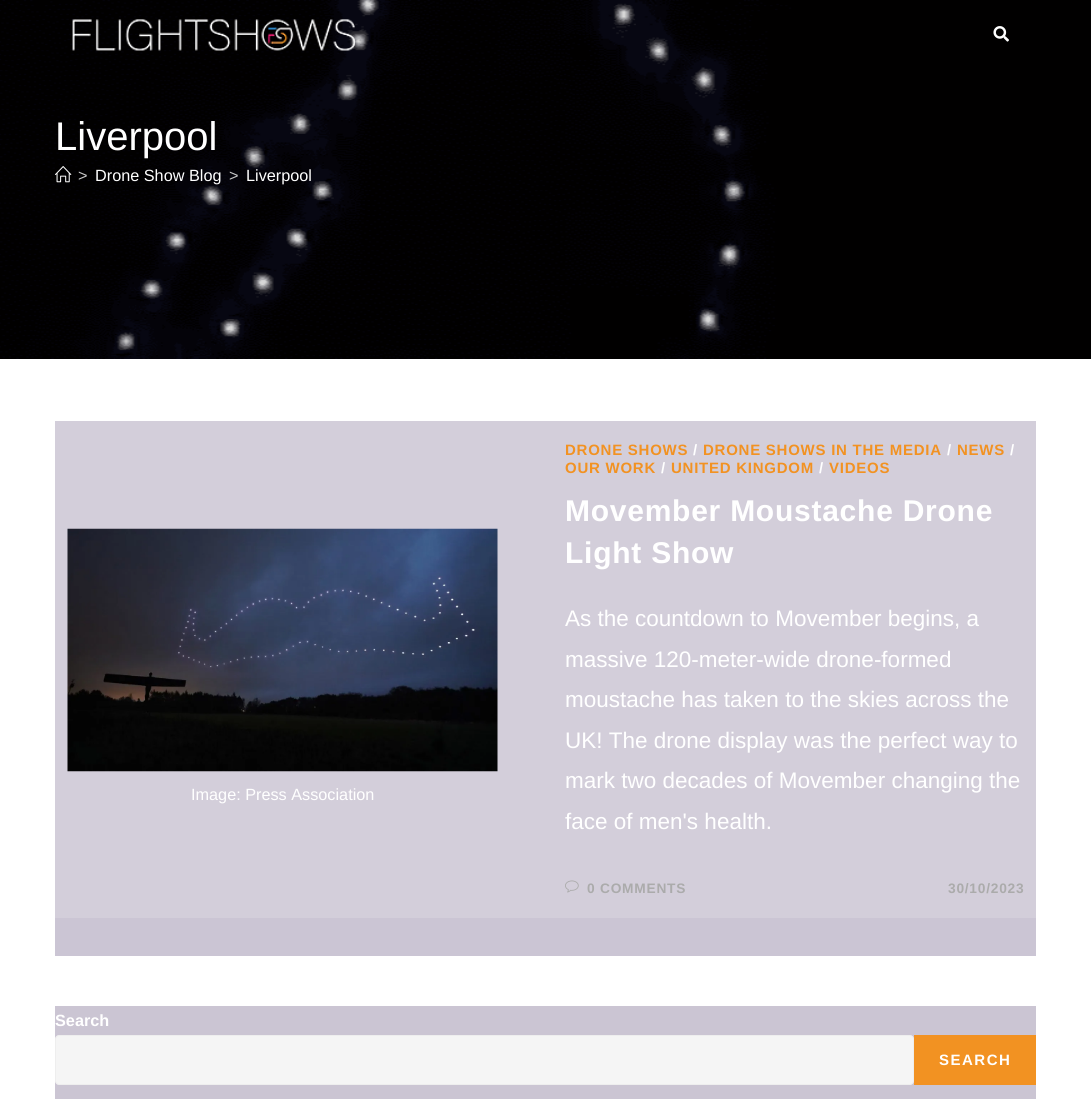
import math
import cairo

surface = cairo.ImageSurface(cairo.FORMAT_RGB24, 1091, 1099)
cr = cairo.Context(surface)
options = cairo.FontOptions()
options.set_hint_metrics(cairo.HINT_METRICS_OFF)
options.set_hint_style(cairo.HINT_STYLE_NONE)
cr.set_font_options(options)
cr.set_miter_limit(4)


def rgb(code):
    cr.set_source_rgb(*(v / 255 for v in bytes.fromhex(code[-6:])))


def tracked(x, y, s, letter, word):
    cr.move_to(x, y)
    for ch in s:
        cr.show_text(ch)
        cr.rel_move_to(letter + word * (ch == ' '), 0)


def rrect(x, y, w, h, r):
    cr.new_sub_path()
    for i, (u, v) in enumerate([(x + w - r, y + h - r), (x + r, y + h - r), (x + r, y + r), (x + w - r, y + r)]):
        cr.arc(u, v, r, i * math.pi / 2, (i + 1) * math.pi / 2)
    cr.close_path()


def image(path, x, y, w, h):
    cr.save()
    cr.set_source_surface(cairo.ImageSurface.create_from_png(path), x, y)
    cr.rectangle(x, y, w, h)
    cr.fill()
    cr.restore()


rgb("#ffffff")
cr.paint()
image("img/3.png", 0, 0, 1091, 359)
image("img/1.png", 72, 19, 283, 32)
image("img/2.png", 993, 26, 16, 16)
image("img/4.png", 55, 166, 17, 17)
rgb("#cbc5d4")
cr.rectangle(55, 918, 981, 38)
cr.fill()
rgb("#d3ceda")
cr.rectangle(55, 421, 981, 497)
cr.fill()
image("img/5.png", 67, 528, 431, 244)
image("img/6.png", 565, 880, 14, 13)
rgb("#cbc5d3")
cr.rectangle(55, 1006, 981, 93)
cr.fill()
rgb("#f5f5f5")
rrect(55.5, 1035.5, 858, 49, 3.5)
cr.fill_preserve()
rgb("#eeeeee")
cr.set_line_width(1)
cr.stroke()
rgb("#f29222")
cr.rectangle(914, 1035, 122, 50)
cr.fill()
cr.select_font_face("Liberation Sans")
cr.set_font_size(40)
rgb("#ffffff")
cr.move_to(55, 150)
cr.show_text("Liverpool")
cr.set_font_size(16.25)
rgb("#c6c6c6")
cr.move_to(78, 181)
cr.show_text(">")
rgb("#ffffff")
cr.move_to(95, 181)
cr.show_text("Drone Show Blog")
rgb("#c6c6c6")
cr.move_to(229, 181)
cr.show_text(">")
rgb("#ffffff")
cr.move_to(246, 181)
cr.show_text("Liverpool")
cr.move_to(191, 800)
cr.show_text("Image: Press Association")
cr.select_font_face("Liberation Sans", cairo.FONT_SLANT_NORMAL, cairo.FONT_WEIGHT_BOLD)
cr.set_font_size(15)
rgb("#f29222")
tracked(565, 455, "DRONE SHOWS", 0.75, 0)
rgb("#ffffff")
tracked(693, 455, "/", 0.75, 0)
rgb("#f29222")
tracked(703, 455, "DRONE SHOWS IN THE MEDIA", 0.75, 0)
rgb("#ffffff")
tracked(947, 455, "/", 0.75, 0)
rgb("#f29222")
tracked(957, 455, "NEWS", 0.75, 0)
rgb("#ffffff")
tracked(1010, 455, "/", 0.75, 0)
rgb("#f29222")
tracked(565, 473, "OUR WORK", 0.75, 0)
rgb("#ffffff")
tracked(661, 473, "/", 0.75, 0)
rgb("#f29222")
tracked(671, 473, "UNITED KINGDOM", 0.75, 0)
rgb("#ffffff")
tracked(819, 473, "/", 0.75, 0)
rgb("#f29222")
tracked(829, 473, "VIDEOS", 0.75, 0)
cr.set_font_size(30)
rgb("#ffffff")
tracked(565, 521, "Movember Moustache Drone", 0.75, 0)
tracked(565, 563, "Light Show", 0.75, 0)
cr.select_font_face("Liberation Sans")
cr.set_font_size(22.5)
for x, y, s in [
    (565, 626, "As the countdown to Movember begins, a"),
    (565, 667, "massive 120-meter-wide drone-formed"),
    (565, 707, "moustache has taken to the skies across the"),
    (565, 748, "UK! The drone display was the perfect way to"),
    (565, 788, "mark two decades of Movember changing the"),
    (565, 829, "face of men's health."),
]:
    cr.move_to(x, y)
    cr.show_text(s)
cr.select_font_face("Liberation Sans", cairo.FONT_SLANT_NORMAL, cairo.FONT_WEIGHT_BOLD)
cr.set_font_size(13.75)
rgb("#ababab")
tracked(587, 893, "0 COMMENTS", 0.75, 0)
tracked(948, 893, "30/10/2023", 0.75, 0)
cr.set_font_size(16.25)
rgb("#ffffff")
cr.move_to(55, 1026)
cr.show_text("Search")
cr.set_font_size(15)
tracked(939, 1065, "SEARCH", 1.5, 0)
surface.write_to_png("page.png")
